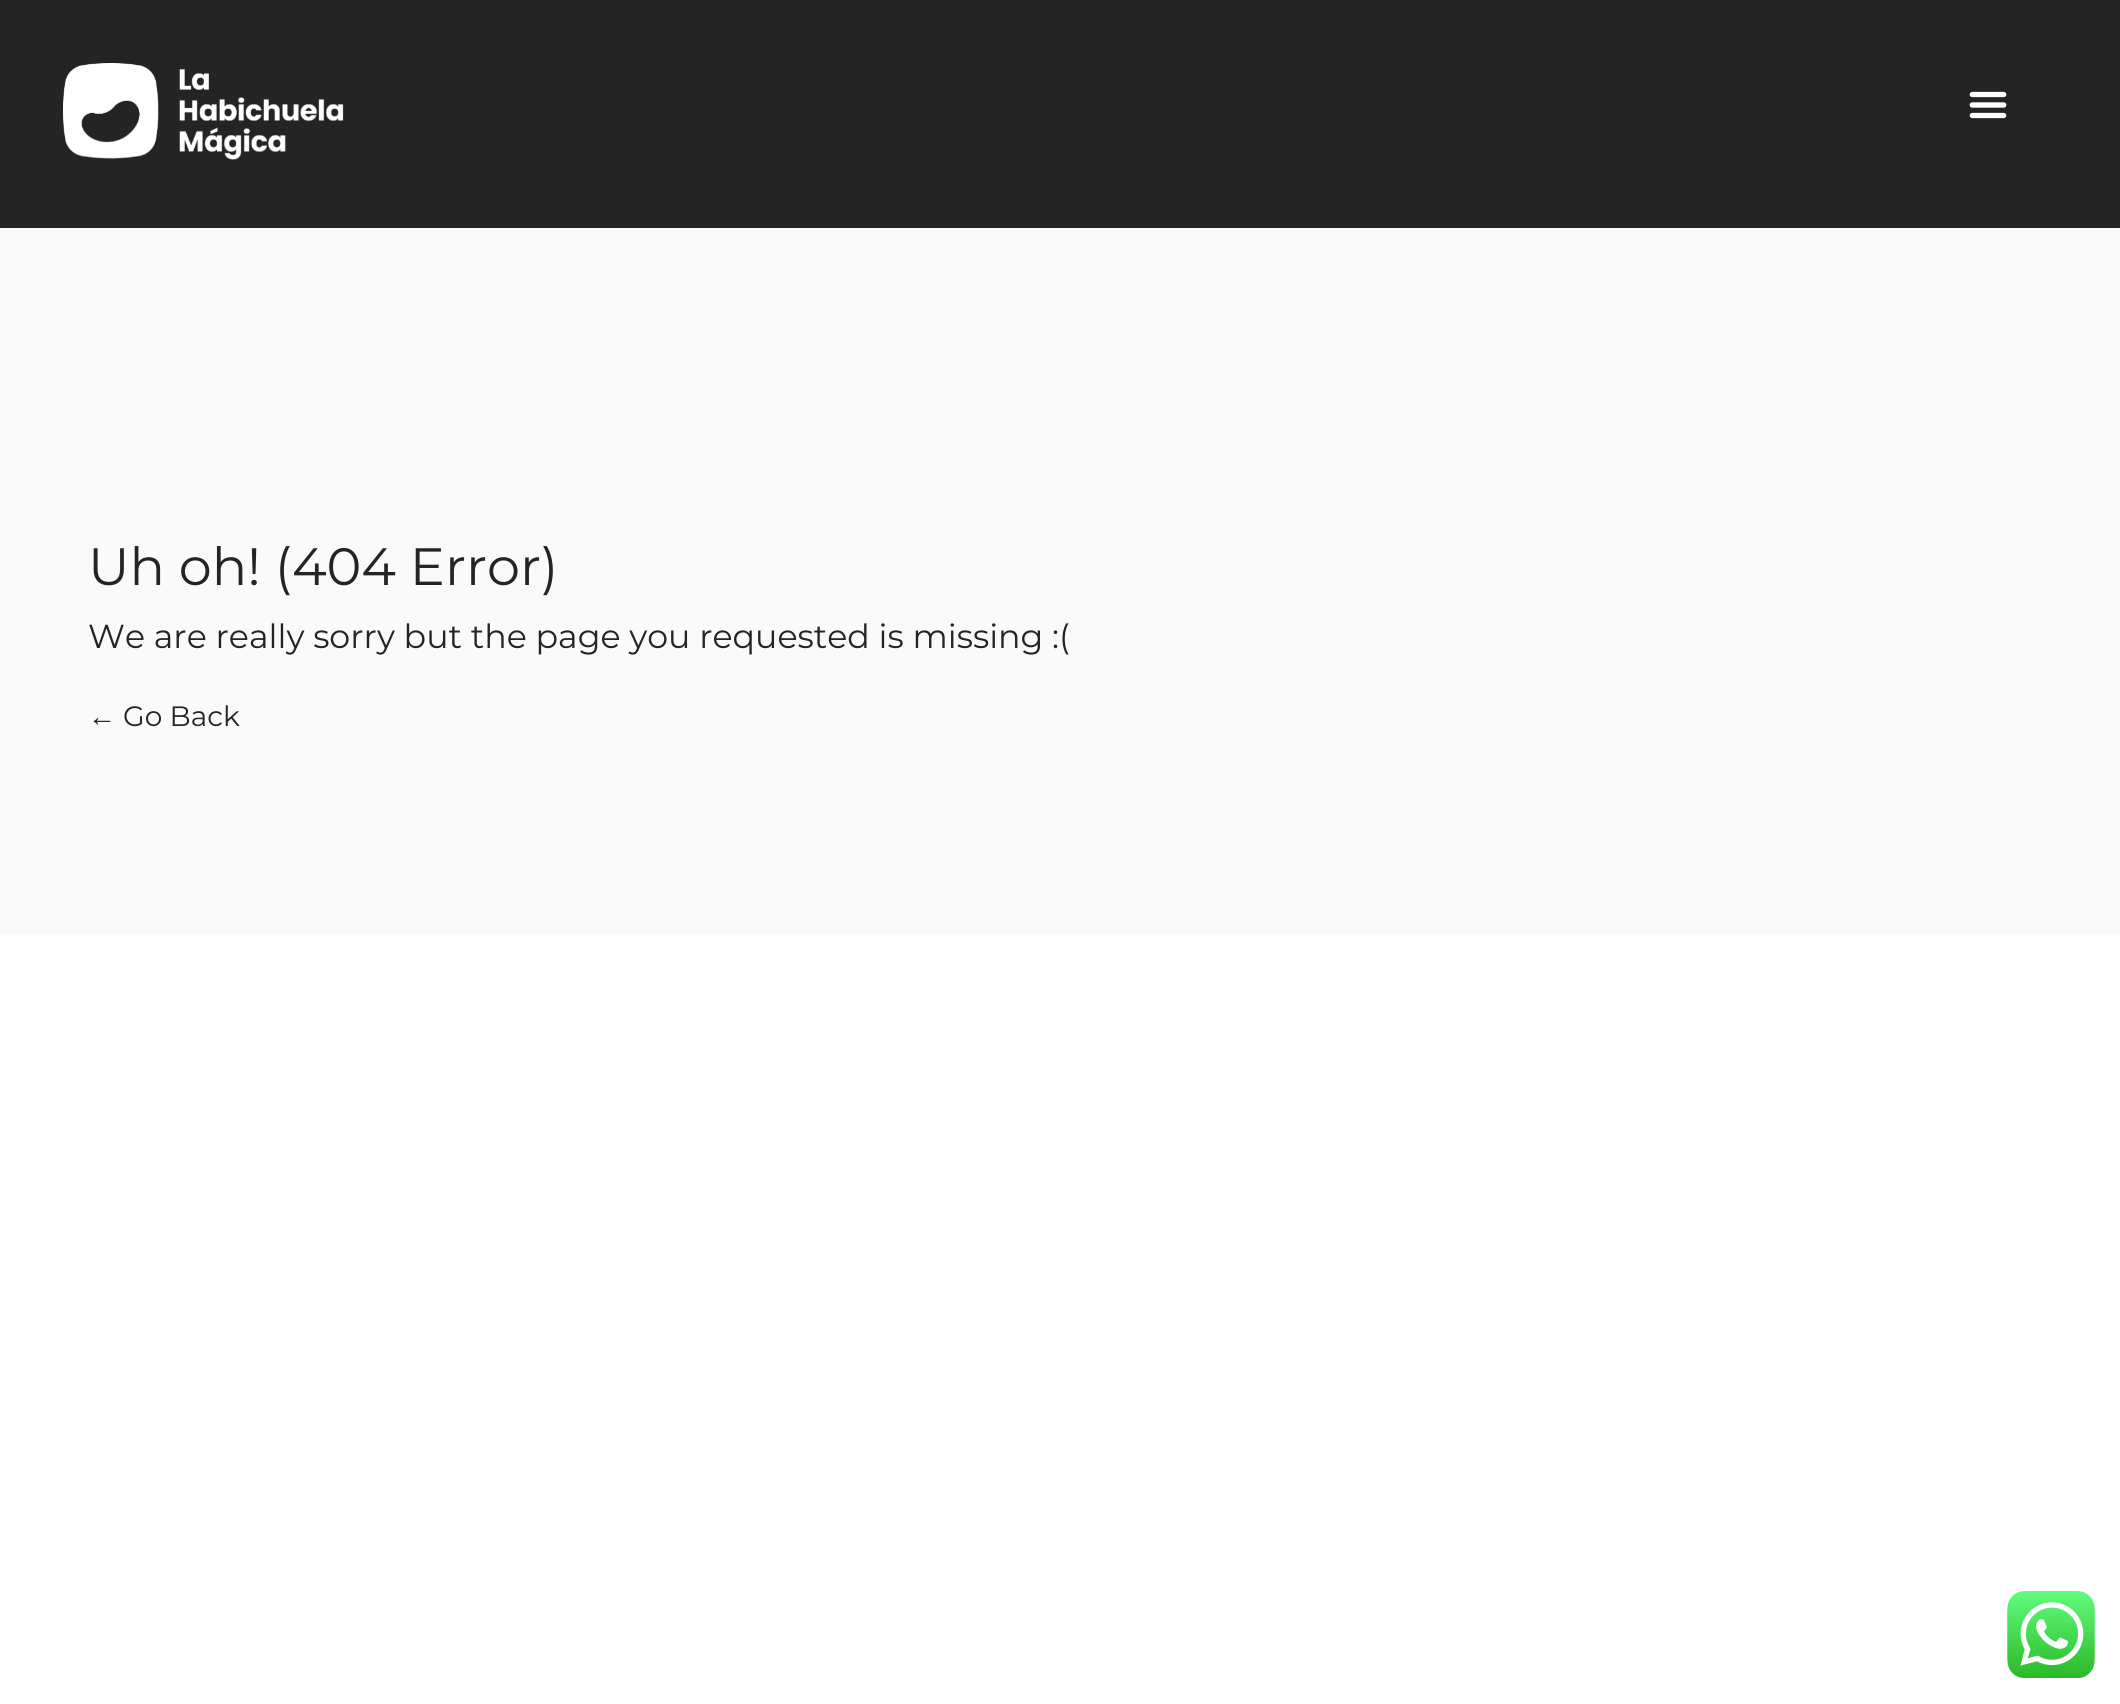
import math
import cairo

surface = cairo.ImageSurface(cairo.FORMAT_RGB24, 2120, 1704)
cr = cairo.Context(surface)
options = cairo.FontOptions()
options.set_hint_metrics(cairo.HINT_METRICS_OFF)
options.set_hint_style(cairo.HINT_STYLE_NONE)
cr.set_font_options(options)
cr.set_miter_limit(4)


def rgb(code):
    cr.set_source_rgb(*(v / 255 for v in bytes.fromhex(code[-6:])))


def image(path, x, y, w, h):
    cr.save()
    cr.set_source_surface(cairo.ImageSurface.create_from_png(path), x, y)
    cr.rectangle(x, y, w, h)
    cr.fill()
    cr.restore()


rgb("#ffffff")
cr.paint()
rgb("#242424")
cr.rectangle(0, 0, 2120, 228)
cr.fill()
image("img/1.png", 63, 63, 281, 97)
image("img/2.png", 1969, 91, 38, 28)
rgb("#fafafa")
cr.rectangle(0, 228, 2120, 707)
cr.fill()
image("img/3.png", 2007, 1591, 88, 87)
cr.select_font_face("Montserrat")
cr.set_font_size(52.5)
rgb("#242424")
cr.move_to(88, 585)
cr.show_text("Uh oh! (404 Error)")
cr.set_font_size(33.25)
cr.move_to(88, 648)
cr.show_text("We are really sorry but the page you requested is missing :(")
cr.select_font_face("Liberation Sans")
cr.set_font_size(28)
cr.move_to(88, 726)
cr.show_text("←")
cr.select_font_face("Montserrat")
cr.move_to(123, 726)
cr.show_text("Go Back")
surface.write_to_png("page.png")
